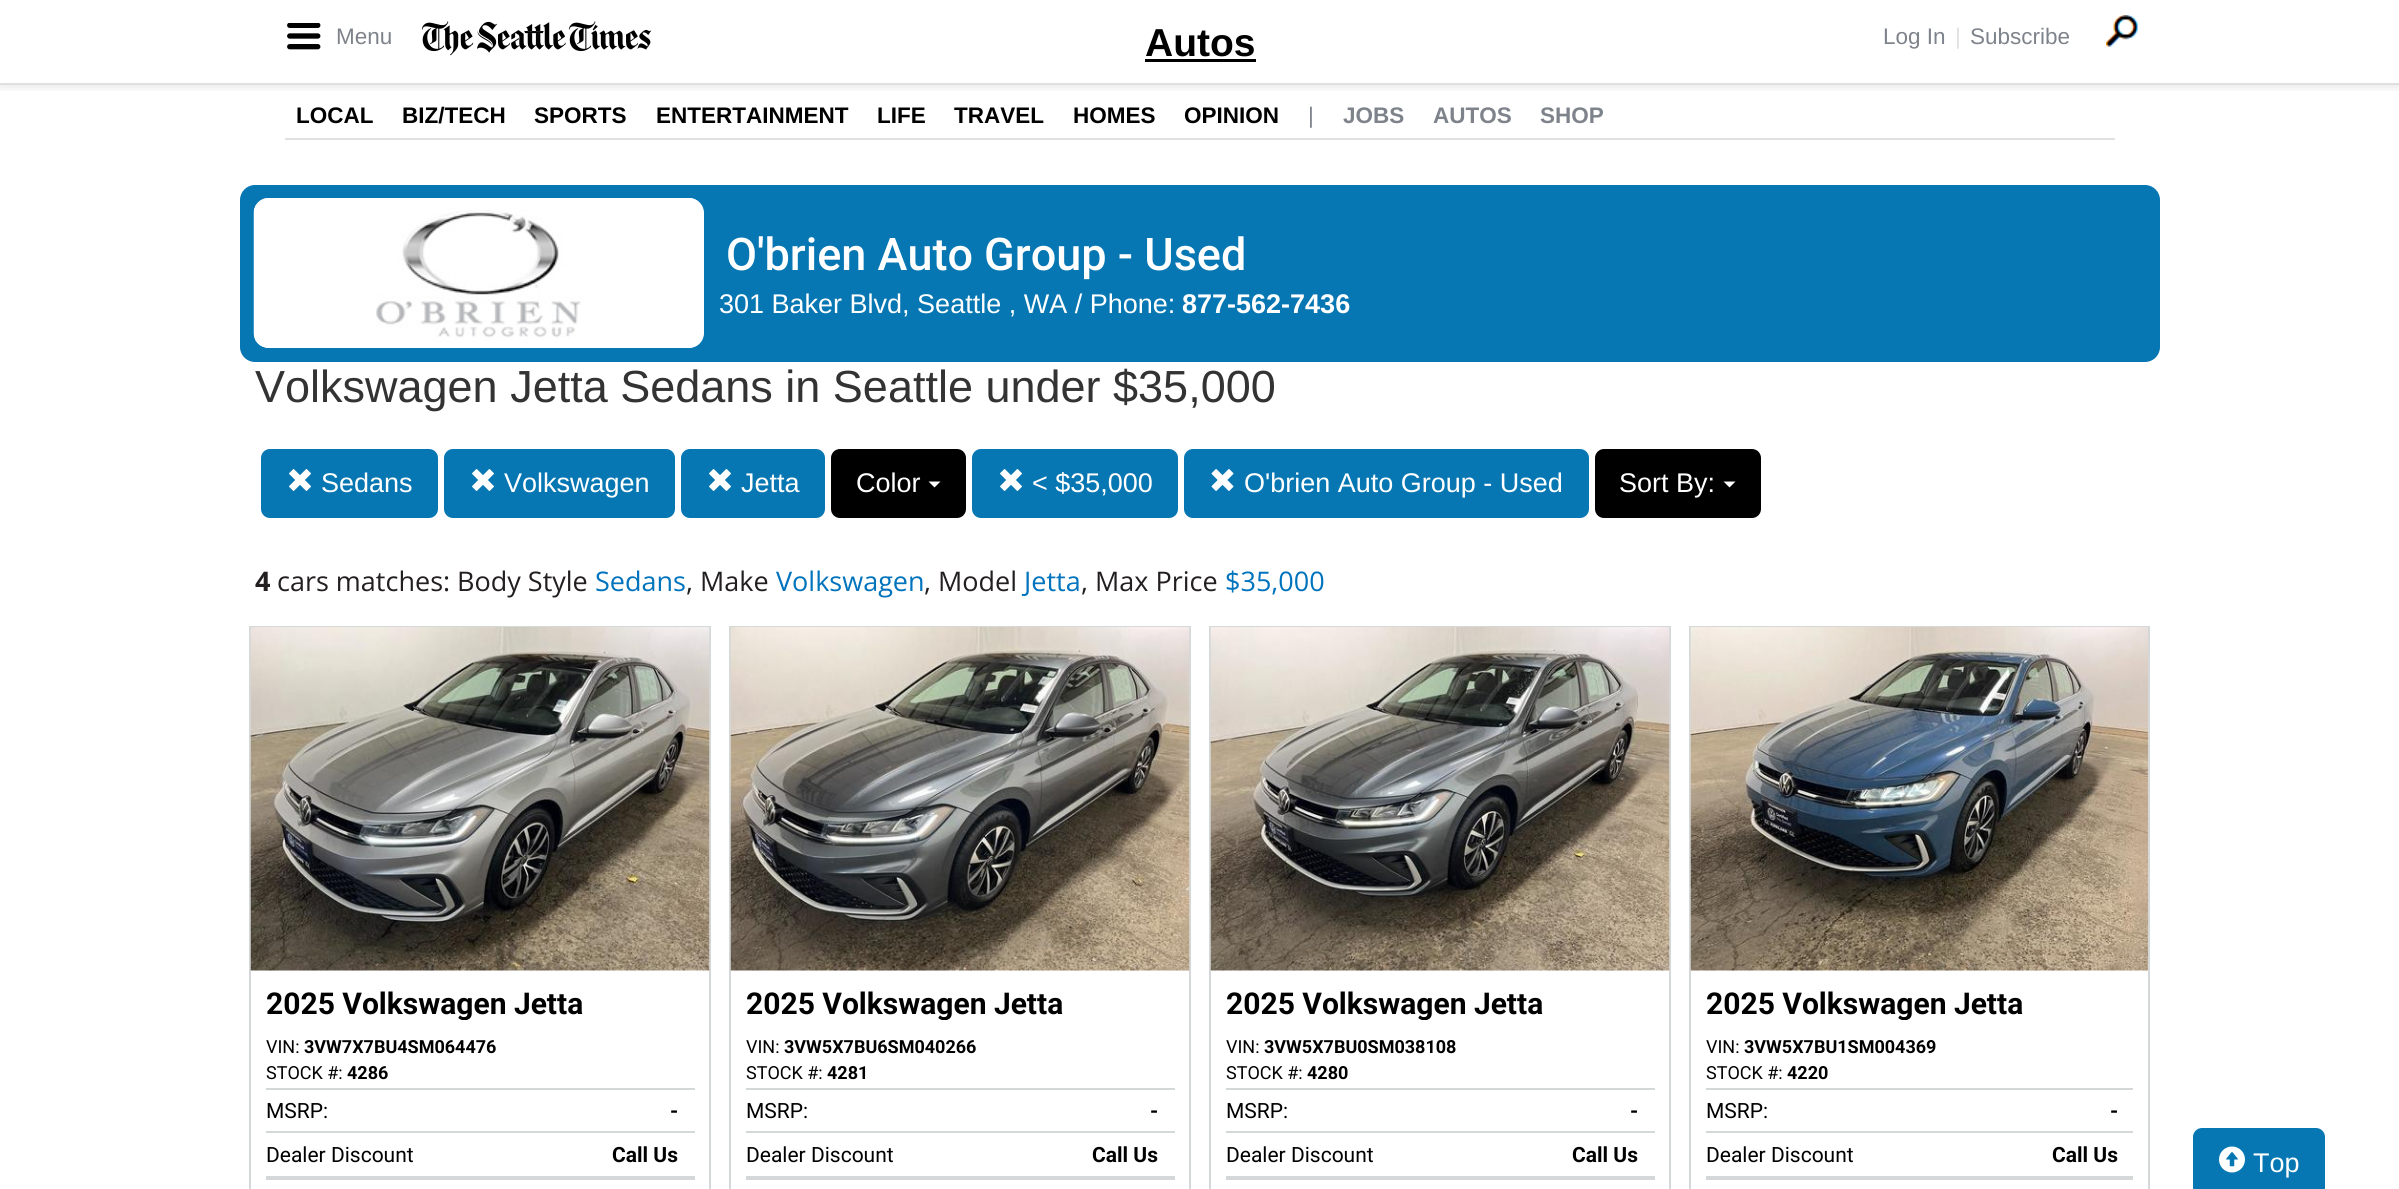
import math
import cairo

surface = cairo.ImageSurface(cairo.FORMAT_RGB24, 2399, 1189)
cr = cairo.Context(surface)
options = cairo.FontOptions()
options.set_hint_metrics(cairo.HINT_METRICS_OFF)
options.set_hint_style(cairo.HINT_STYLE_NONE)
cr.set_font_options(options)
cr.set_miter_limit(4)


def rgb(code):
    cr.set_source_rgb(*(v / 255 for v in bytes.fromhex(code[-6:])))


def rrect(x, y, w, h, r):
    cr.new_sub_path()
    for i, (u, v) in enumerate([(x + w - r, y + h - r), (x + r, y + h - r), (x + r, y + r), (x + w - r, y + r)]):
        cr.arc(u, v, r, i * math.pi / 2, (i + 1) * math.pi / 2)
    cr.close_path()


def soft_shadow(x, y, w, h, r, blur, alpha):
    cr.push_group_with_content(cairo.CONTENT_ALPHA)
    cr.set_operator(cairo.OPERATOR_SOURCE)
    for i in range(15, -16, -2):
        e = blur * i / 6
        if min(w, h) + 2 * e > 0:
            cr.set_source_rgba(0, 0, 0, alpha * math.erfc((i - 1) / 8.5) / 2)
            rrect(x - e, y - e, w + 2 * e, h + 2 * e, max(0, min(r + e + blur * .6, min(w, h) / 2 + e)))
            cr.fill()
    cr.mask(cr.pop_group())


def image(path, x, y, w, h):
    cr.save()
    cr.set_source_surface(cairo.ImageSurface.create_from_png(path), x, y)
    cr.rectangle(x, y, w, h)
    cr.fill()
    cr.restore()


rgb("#ffffff")
cr.paint()
cr.save()
cr.rectangle(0, 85, 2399, 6)
cr.clip()
rgb("#000000")
soft_shadow(0, 3, 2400, 84, 0, 5, 0.1)
cr.restore()
rgb("#e0e0e0")
cr.rectangle(0, 83, 2399, 2)
cr.fill()
image("img/1.png", 287, 23, 34, 27)
image("img/2.png", 422, 21, 230, 35)
image("img/3.png", 2106, 15, 32, 32)
rgb("#000000")
cr.rectangle(1145, 59, 111, 3)
cr.fill()
rgb("#e0e0e0")
cr.rectangle(285, 138, 1830, 2)
cr.fill()
rgb("#0777b3")
rrect(240, 185, 1920, 177, 15)
cr.fill()
rgb("#ffffff")
rrect(254, 198, 450, 150, 15)
cr.fill()
image("img/4.png", 253, 198, 451, 150)
rgb("#0777b3")
rrect(261, 449, 177, 69, 9)
cr.fill()
image("img/5.png", 289, 469, 22, 22)
rrect(444, 449, 231, 69, 9)
cr.fill()
image("img/5.png", 472, 469, 22, 22)
rrect(681, 449, 144, 69, 9)
cr.fill()
image("img/5.png", 709, 469, 22, 22)
rgb("#000000")
rrect(831, 449, 135, 69, 9)
cr.fill()
rgb("#ffffff")
cr.new_path()
cr.move_to(928.5, 481.5)
cr.line_to(940.5, 481.5)
cr.line_to(934.5, 487.5)
cr.close_path()
cr.fill()
rgb("#0777b3")
rrect(972, 449, 206, 69, 9)
cr.fill()
image("img/5.png", 1000, 469, 22, 22)
rrect(1184, 449, 405, 69, 9)
cr.fill()
image("img/6.png", 1211, 469, 23, 22)
rgb("#000000")
rrect(1595, 449, 166, 69, 9)
cr.fill()
rgb("#ffffff")
cr.new_path()
cr.move_to(1723.5, 481.5)
cr.line_to(1735.5, 481.5)
cr.line_to(1729.5, 487.5)
cr.close_path()
cr.fill()
cr.rectangle(250, 627, 460, 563)
rgb("#d4d8d9")
cr.stroke()
image("img/7.png", 250, 627, 460, 344)
for x, y, w, h, color in [
    (266, 1088, 429, 2, "#d4d8d9"),
    (266, 1131, 429, 2, "#d4d8d9"),
    (266, 1176, 429, 4, "#d4d8d9"),
]:
    rgb(color)
    cr.rectangle(x, y, w, h)
    cr.fill()
cr.rectangle(730, 627, 460, 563)
cr.stroke()
image("img/8.png", 730, 627, 460, 344)
for x, y, w, h, color in [
    (746, 1088, 429, 2, "#d4d8d9"),
    (746, 1131, 429, 2, "#d4d8d9"),
    (746, 1176, 429, 4, "#d4d8d9"),
]:
    rgb(color)
    cr.rectangle(x, y, w, h)
    cr.fill()
cr.rectangle(1210, 627, 460, 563)
cr.stroke()
image("img/9.png", 1210, 627, 460, 344)
for x, y, w, h, color in [
    (1226, 1088, 429, 2, "#d4d8d9"),
    (1226, 1131, 429, 2, "#d4d8d9"),
    (1226, 1176, 429, 4, "#d4d8d9"),
]:
    rgb(color)
    cr.rectangle(x, y, w, h)
    cr.fill()
cr.rectangle(1690, 627, 459, 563)
cr.stroke()
image("img/10.png", 1690, 627, 458, 344)
for x, y, w, h, color in [
    (1706, 1088, 427, 2, "#d4d8d9"),
    (1706, 1131, 427, 2, "#d4d8d9"),
    (1706, 1176, 427, 4, "#d4d8d9"),
]:
    rgb(color)
    cr.rectangle(x, y, w, h)
    cr.fill()
rgb("#0777b3")
rrect(2194, 1129, 130, 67, 8)
cr.fill_preserve()
cr.stroke()
image("img/11.png", 2219, 1146, 26, 27)
cr.select_font_face("Liberation Sans")
cr.set_font_size(22.5)
rgb("#7e838b")
cr.move_to(336, 44)
cr.show_text("Menu")
cr.move_to(1883, 44)
cr.show_text("Log In")
rgb("#e0e0e0")
cr.move_to(1955, 44)
cr.show_text("|")
rgb("#7e838b")
cr.move_to(1970, 44)
cr.show_text("Subscribe")
cr.select_font_face("Liberation Sans", cairo.FONT_SLANT_NORMAL, cairo.FONT_WEIGHT_BOLD)
cr.set_font_size(39)
rgb("#000000")
cr.move_to(1145, 56)
cr.show_text("Autos")
cr.set_font_size(22.5)
for x, y, s in [
    (296, 123, "LOCAL"),
    (402, 123, "BIZ/TECH"),
    (534, 123, "SPORTS"),
    (656, 123, "ENTERTAINMENT"),
    (877, 123, "LIFE"),
    (954, 123, "TRAVEL"),
    (1073, 123, "HOMES"),
    (1184, 123, "OPINION"),
]:
    cr.move_to(x, y)
    cr.show_text(s)
cr.select_font_face("Liberation Sans")
rgb("#7e838b")
cr.move_to(1308, 123)
cr.show_text("|")
cr.select_font_face("Liberation Sans", cairo.FONT_SLANT_NORMAL, cairo.FONT_WEIGHT_BOLD)
for x, y, s in [
    (1343, 123, "JOBS"),
    (1433, 123, "AUTOS"),
    (1540, 123, "SHOP"),
]:
    cr.move_to(x, y)
    cr.show_text(s)
cr.select_font_face("Roboto Medium")
cr.set_font_size(45)
rgb("#ffffff")
cr.move_to(726, 270)
cr.show_text("O'brien Auto Group - Used")
cr.select_font_face("Liberation Sans")
cr.set_font_size(27)
cr.move_to(719, 313)
cr.show_text("301 Baker Blvd, Seattle , WA / Phone:")
cr.select_font_face("Liberation Sans", cairo.FONT_SLANT_NORMAL, cairo.FONT_WEIGHT_BOLD)
cr.move_to(1182, 313)
cr.show_text("877-562-7436")
cr.select_font_face("Liberation Sans")
cr.set_font_size(45)
rgb("#333333")
cr.move_to(255, 402)
cr.show_text("Volkswagen Jetta Sedans in Seattle under $35,000")
cr.set_font_size(27)
rgb("#ffffff")
for x, y, s in [
    (321, 492, "Sedans"),
    (504, 492, "Volkswagen"),
    (741, 492, "Jetta"),
    (856, 492, "Color"),
    (1032, 492, "< $35,000"),
    (1244, 492, "O'brien Auto Group - Used"),
    (1619, 492, "Sort By:"),
]:
    cr.move_to(x, y)
    cr.show_text(s)
cr.select_font_face("Open Sans", cairo.FONT_SLANT_NORMAL, cairo.FONT_WEIGHT_BOLD)
rgb("#231f20")
cr.move_to(255, 591)
cr.show_text("4")
cr.select_font_face("Open Sans")
cr.move_to(277, 591)
cr.show_text("cars matches: Body Style")
rgb("#0073bd")
cr.move_to(595, 591)
cr.show_text("Sedans")
rgb("#231f20")
cr.move_to(686, 591)
cr.show_text(", Make")
rgb("#0073bd")
cr.move_to(776, 591)
cr.show_text("Volkswagen")
rgb("#231f20")
cr.move_to(924, 591)
cr.show_text(", Model")
rgb("#0073bd")
cr.move_to(1024, 591)
cr.show_text("Jetta")
rgb("#231f20")
cr.move_to(1081, 591)
cr.show_text(", Max Price")
rgb("#0073bd")
cr.move_to(1225, 591)
cr.show_text("$35,000")
cr.save()
cr.rectangle(266, 987, 318, 33)
cr.clip()
cr.select_font_face("Roboto", cairo.FONT_SLANT_NORMAL, cairo.FONT_WEIGHT_BOLD)
cr.set_font_size(30)
rgb("#000000")
cr.move_to(266, 1014)
cr.show_text("2025 Volkswagen Jetta")
cr.restore()
cr.select_font_face("Roboto")
cr.set_font_size(18)
rgb("#000000")
cr.move_to(266, 1053)
cr.show_text("VIN:")
cr.select_font_face("Roboto", cairo.FONT_SLANT_NORMAL, cairo.FONT_WEIGHT_BOLD)
cr.move_to(304, 1053)
cr.show_text("3VW7X7BU4SM064476")
cr.select_font_face("Roboto")
cr.move_to(266, 1079)
cr.show_text("STOCK #:")
cr.select_font_face("Roboto", cairo.FONT_SLANT_NORMAL, cairo.FONT_WEIGHT_BOLD)
cr.move_to(347, 1079)
cr.show_text("4286")
cr.select_font_face("Roboto")
cr.set_font_size(21)
cr.move_to(266, 1118)
cr.show_text("MSRP:")
cr.select_font_face("Roboto", cairo.FONT_SLANT_NORMAL, cairo.FONT_WEIGHT_BOLD)
cr.move_to(670, 1118)
cr.show_text("-")
cr.select_font_face("Roboto")
cr.move_to(266, 1162)
cr.show_text("Dealer Discount")
cr.select_font_face("Roboto", cairo.FONT_SLANT_NORMAL, cairo.FONT_WEIGHT_BOLD)
cr.move_to(612, 1162)
cr.show_text("Call Us")
cr.save()
cr.rectangle(746, 987, 318, 33)
cr.clip()
cr.set_font_size(30)
cr.move_to(746, 1014)
cr.show_text("2025 Volkswagen Jetta")
cr.restore()
cr.select_font_face("Roboto")
cr.set_font_size(18)
cr.move_to(746, 1053)
cr.show_text("VIN:")
cr.select_font_face("Roboto", cairo.FONT_SLANT_NORMAL, cairo.FONT_WEIGHT_BOLD)
cr.move_to(784, 1053)
cr.show_text("3VW5X7BU6SM040266")
cr.select_font_face("Roboto")
cr.move_to(746, 1079)
cr.show_text("STOCK #:")
cr.select_font_face("Roboto", cairo.FONT_SLANT_NORMAL, cairo.FONT_WEIGHT_BOLD)
cr.move_to(827, 1079)
cr.show_text("4281")
cr.select_font_face("Roboto")
cr.set_font_size(21)
cr.move_to(746, 1118)
cr.show_text("MSRP:")
cr.select_font_face("Roboto", cairo.FONT_SLANT_NORMAL, cairo.FONT_WEIGHT_BOLD)
cr.move_to(1150, 1118)
cr.show_text("-")
cr.select_font_face("Roboto")
cr.move_to(746, 1162)
cr.show_text("Dealer Discount")
cr.select_font_face("Roboto", cairo.FONT_SLANT_NORMAL, cairo.FONT_WEIGHT_BOLD)
cr.move_to(1092, 1162)
cr.show_text("Call Us")
cr.save()
cr.rectangle(1226, 987, 318, 33)
cr.clip()
cr.set_font_size(30)
cr.move_to(1226, 1014)
cr.show_text("2025 Volkswagen Jetta")
cr.restore()
cr.select_font_face("Roboto")
cr.set_font_size(18)
cr.move_to(1226, 1053)
cr.show_text("VIN:")
cr.select_font_face("Roboto", cairo.FONT_SLANT_NORMAL, cairo.FONT_WEIGHT_BOLD)
cr.move_to(1264, 1053)
cr.show_text("3VW5X7BU0SM038108")
cr.select_font_face("Roboto")
cr.move_to(1226, 1079)
cr.show_text("STOCK #:")
cr.select_font_face("Roboto", cairo.FONT_SLANT_NORMAL, cairo.FONT_WEIGHT_BOLD)
cr.move_to(1307, 1079)
cr.show_text("4280")
cr.select_font_face("Roboto")
cr.set_font_size(21)
cr.move_to(1226, 1118)
cr.show_text("MSRP:")
cr.select_font_face("Roboto", cairo.FONT_SLANT_NORMAL, cairo.FONT_WEIGHT_BOLD)
cr.move_to(1630, 1118)
cr.show_text("-")
cr.select_font_face("Roboto")
cr.move_to(1226, 1162)
cr.show_text("Dealer Discount")
cr.select_font_face("Roboto", cairo.FONT_SLANT_NORMAL, cairo.FONT_WEIGHT_BOLD)
cr.move_to(1572, 1162)
cr.show_text("Call Us")
cr.save()
cr.rectangle(1706, 987, 318, 33)
cr.clip()
cr.set_font_size(30)
cr.move_to(1706, 1014)
cr.show_text("2025 Volkswagen Jetta")
cr.restore()
cr.select_font_face("Roboto")
cr.set_font_size(18)
cr.move_to(1706, 1053)
cr.show_text("VIN:")
cr.select_font_face("Roboto", cairo.FONT_SLANT_NORMAL, cairo.FONT_WEIGHT_BOLD)
cr.move_to(1744, 1053)
cr.show_text("3VW5X7BU1SM004369")
cr.select_font_face("Roboto")
cr.move_to(1706, 1079)
cr.show_text("STOCK #:")
cr.select_font_face("Roboto", cairo.FONT_SLANT_NORMAL, cairo.FONT_WEIGHT_BOLD)
cr.move_to(1787, 1079)
cr.show_text("4220")
cr.select_font_face("Roboto")
cr.set_font_size(21)
cr.move_to(1706, 1118)
cr.show_text("MSRP:")
cr.select_font_face("Roboto", cairo.FONT_SLANT_NORMAL, cairo.FONT_WEIGHT_BOLD)
cr.move_to(2110, 1118)
cr.show_text("-")
cr.select_font_face("Roboto")
cr.move_to(1706, 1162)
cr.show_text("Dealer Discount")
cr.select_font_face("Roboto", cairo.FONT_SLANT_NORMAL, cairo.FONT_WEIGHT_BOLD)
cr.move_to(2052, 1162)
cr.show_text("Call Us")
cr.select_font_face("Liberation Sans")
cr.set_font_size(27)
rgb("#ffffff")
cr.move_to(2253, 1172)
cr.show_text("Top")
surface.write_to_png("page.png")
